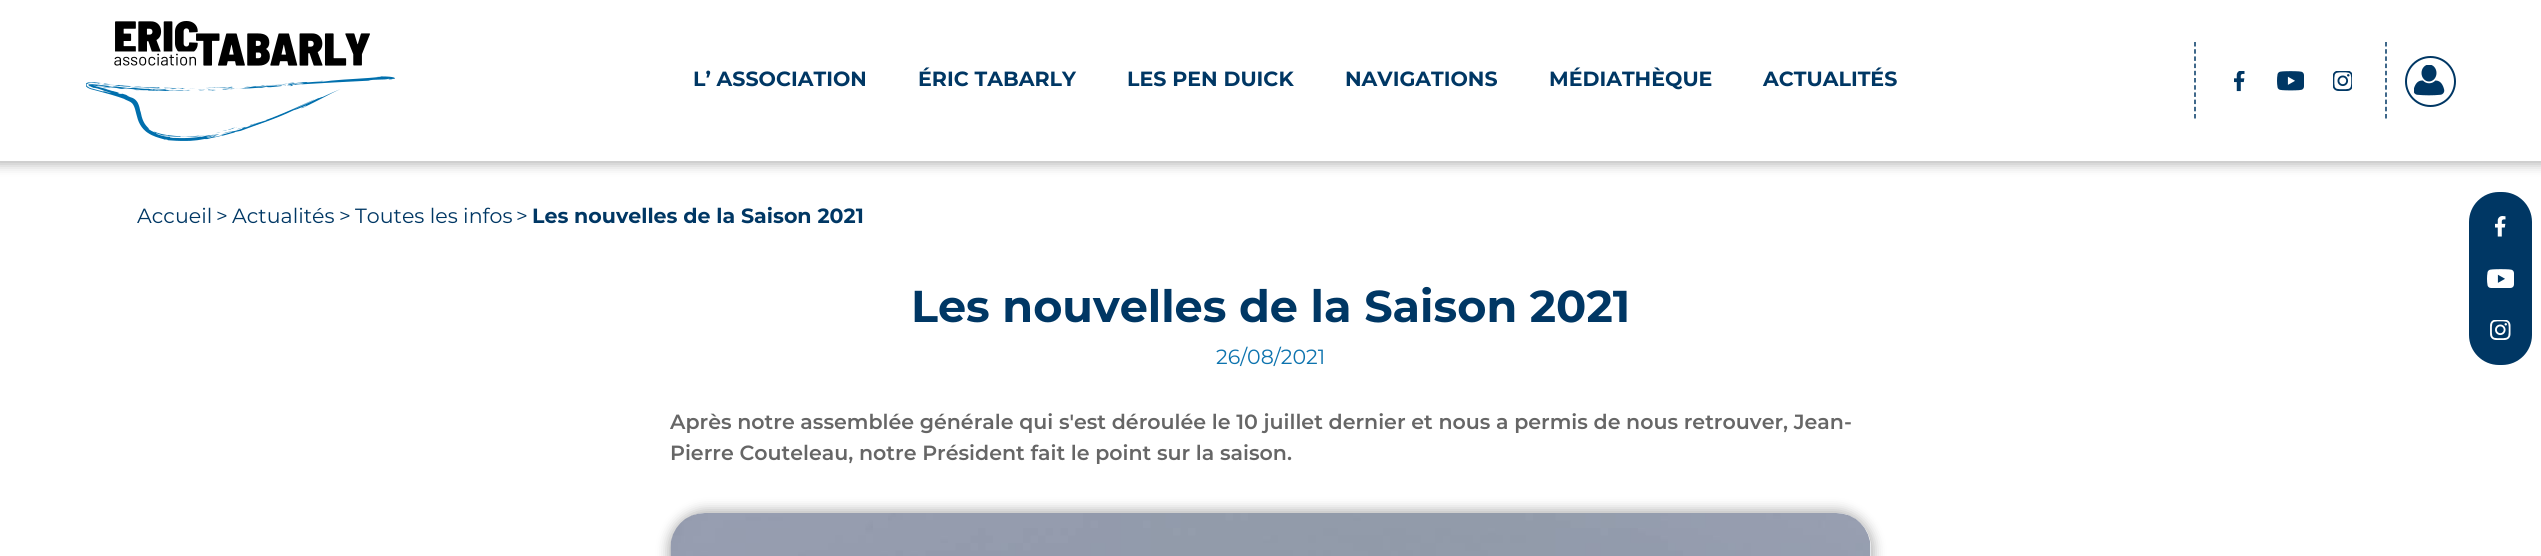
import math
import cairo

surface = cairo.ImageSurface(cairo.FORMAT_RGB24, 2541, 556)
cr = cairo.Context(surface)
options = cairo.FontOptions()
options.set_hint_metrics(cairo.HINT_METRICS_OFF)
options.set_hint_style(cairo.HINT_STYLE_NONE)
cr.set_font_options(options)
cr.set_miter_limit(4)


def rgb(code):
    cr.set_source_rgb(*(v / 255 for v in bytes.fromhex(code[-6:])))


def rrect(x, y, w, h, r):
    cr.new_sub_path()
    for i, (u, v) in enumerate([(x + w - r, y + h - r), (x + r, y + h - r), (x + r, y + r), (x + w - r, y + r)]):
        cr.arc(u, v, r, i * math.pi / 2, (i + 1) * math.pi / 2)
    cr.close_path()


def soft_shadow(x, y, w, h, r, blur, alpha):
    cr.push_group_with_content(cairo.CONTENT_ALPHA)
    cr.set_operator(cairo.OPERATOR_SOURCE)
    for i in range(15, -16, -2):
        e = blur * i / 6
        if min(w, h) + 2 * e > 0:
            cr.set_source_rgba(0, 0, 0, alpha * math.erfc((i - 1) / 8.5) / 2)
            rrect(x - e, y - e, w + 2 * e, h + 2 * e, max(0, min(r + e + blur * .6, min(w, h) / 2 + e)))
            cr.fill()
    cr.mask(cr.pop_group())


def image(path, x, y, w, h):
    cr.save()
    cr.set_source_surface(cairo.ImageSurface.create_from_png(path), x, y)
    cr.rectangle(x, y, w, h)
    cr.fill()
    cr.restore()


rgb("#ffffff")
cr.paint()
rgb("#000000")
soft_shadow(-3, -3, 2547, 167, 0, 6, 0.3)
rgb("#ffffff")
cr.rectangle(0, 0, 2541, 161)
cr.fill()
image("img/1.png", 86, 21, 309, 120)
cr.new_path()
cr.move_to(2195, 42)
cr.line_to(2195, 118.5)
rgb("#003764")
cr.set_line_width(1.5)
cr.set_dash([4.5, 2.7])
cr.stroke()
image("img/2.png", 2234, 71, 11, 21)
image("img/3.png", 2277, 71, 27, 20)
image("img/4.png", 2333, 71, 19, 20)
cr.new_path()
cr.move_to(2386, 42)
cr.line_to(2386, 118.5)
cr.stroke()
cr.arc(2430.5, 81.5, 24.5, 0, 2 * math.pi)
cr.set_line_width(2)
cr.set_dash([])
cr.stroke()
image("img/5.png", 2414, 65, 31, 31)
rrect(2469, 192, 63, 173, 30)
cr.fill()
image("img/6.png", 2495, 216, 11, 21)
image("img/7.png", 2487, 269, 27, 19)
image("img/8.png", 2490, 320, 21, 20)
rgb("#000000")
soft_shadow(668, 510, 1206, 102, 38, 6, 0.3)
rgb("#ffffff")
rrect(671, 513, 1200, 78, 35)
cr.fill()
image("img/9.png", 670, 513, 1201, 43)
cr.select_font_face("Montserrat", cairo.FONT_SLANT_NORMAL, cairo.FONT_WEIGHT_BOLD)
cr.set_font_size(20.57)
rgb("#003764")
for x, y, s in [
    (693, 86, "L’ ASSOCIATION"),
    (918, 86, "ÉRIC TABARLY"),
    (1127, 86, "LES PEN DUICK"),
    (1345, 86, "NAVIGATIONS"),
    (1549, 86, "MÉDIATHÈQUE"),
    (1763, 86, "ACTUALITÉS"),
]:
    cr.move_to(x, y)
    cr.show_text(s)
cr.select_font_face("Montserrat")
for x, y, s in [
    (137, 223, "Accueil"),
    (216, 223, ">"),
    (232, 223, "Actualités"),
    (339, 223, ">"),
    (355, 223, "Toutes les infos"),
    (516, 223, ">"),
]:
    cr.move_to(x, y)
    cr.show_text(s)
cr.select_font_face("Montserrat", cairo.FONT_SLANT_NORMAL, cairo.FONT_WEIGHT_BOLD)
cr.move_to(532, 223)
cr.show_text("Les nouvelles de la Saison 2021")
cr.set_font_size(44.6)
cr.move_to(911, 322)
cr.show_text("Les nouvelles de la Saison 2021")
cr.select_font_face("Montserrat")
cr.set_font_size(20.57)
rgb("#0d73ae")
cr.move_to(1216, 364)
cr.show_text("26/08/2021")
cr.select_font_face("Montserrat SemiBold")
rgb("#666666")
cr.move_to(670, 429)
cr.show_text("Après notre assemblée générale qui s'est déroulée le 10 juillet dernier et nous a permis de nous retrouver, Jean-")
cr.move_to(670, 460)
cr.show_text("Pierre Couteleau, notre Président fait le point sur la saison.")
surface.write_to_png("page.png")
